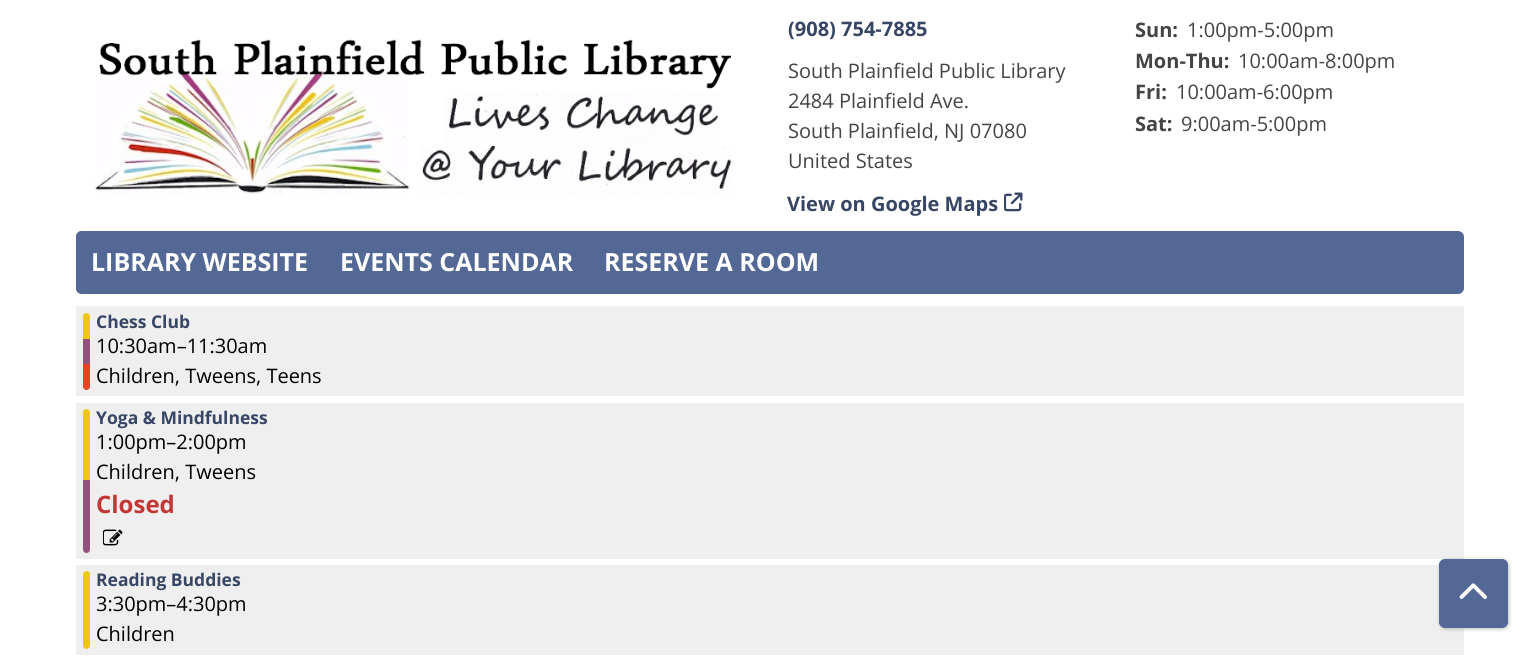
import math
import cairo

surface = cairo.ImageSurface(cairo.FORMAT_RGB24, 1538, 658)
cr = cairo.Context(surface)
options = cairo.FontOptions()
options.set_hint_metrics(cairo.HINT_METRICS_OFF)
options.set_hint_style(cairo.HINT_STYLE_NONE)
cr.set_font_options(options)
cr.set_miter_limit(4)


def rgb(code):
    cr.set_source_rgb(*(v / 255 for v in bytes.fromhex(code[-6:])))


def rrect(x, y, w, h, r):
    cr.new_sub_path()
    for i, (u, v) in enumerate([(x + w - r, y + h - r), (x + r, y + h - r), (x + r, y + r), (x + w - r, y + r)]):
        cr.arc(u, v, r, i * math.pi / 2, (i + 1) * math.pi / 2)
    cr.close_path()


def soft_shadow(x, y, w, h, r, blur, alpha):
    cr.push_group_with_content(cairo.CONTENT_ALPHA)
    cr.set_operator(cairo.OPERATOR_SOURCE)
    for i in range(15, -16, -2):
        e = blur * i / 6
        if min(w, h) + 2 * e > 0:
            cr.set_source_rgba(0, 0, 0, alpha * math.erfc((i - 1) / 8.5) / 2)
            rrect(x - e, y - e, w + 2 * e, h + 2 * e, max(0, min(r + e + blur * .6, min(w, h) / 2 + e)))
            cr.fill()
    cr.mask(cr.pop_group())


def image(path, x, y, w, h):
    cr.save()
    cr.set_source_surface(cairo.ImageSurface.create_from_png(path), x, y)
    cr.rectangle(x, y, w, h)
    cr.fill()
    cr.restore()


rgb("#ffffff")
cr.paint()
image("img/1.png", 94, 39, 639, 158)
image("img/2.png", 1004, 192, 19, 20)
rgb("#536895")
rrect(76, 231, 1388, 63, 6)
cr.fill()
cr.new_path()
cr.move_to(82, 231)
cr.line_to(324, 231)
cr.line_to(324, 294)
cr.line_to(82, 294)
cr.curve_to(78.5, 294, 76, 291.5, 76, 288)
cr.line_to(76, 237)
cr.curve_to(76, 233.5, 78.5, 231, 82, 231)
cr.close_path()
cr.fill()
rgb("#efefef")
cr.rectangle(76, 306, 1388, 90)
cr.fill()
rgb("#ecc714")
cr.new_path()
cr.move_to(86.5, 313)
cr.curve_to(88.5, 313, 90, 314.5, 90, 316.5)
cr.line_to(90, 339)
cr.line_to(83, 339)
cr.line_to(83, 316.5)
cr.curve_to(83, 314.5, 84.5, 313, 86.5, 313)
cr.close_path()
cr.fill()
rgb("#91537c")
cr.rectangle(83, 339, 7, 25)
cr.fill()
rgb("#e94225")
cr.new_path()
cr.move_to(83, 364)
cr.line_to(90, 364)
cr.line_to(90, 386.5)
cr.curve_to(90, 388.5, 88.5, 390, 86.5, 390)
cr.curve_to(84.5, 390, 83, 388.5, 83, 386.5)
cr.close_path()
cr.fill()
rgb("#efefef")
cr.rectangle(76, 403, 1388, 156)
cr.fill()
rgb("#ecc714")
cr.new_path()
cr.move_to(86.5, 409)
cr.curve_to(88.5, 409, 90, 410.5, 90, 412.5)
cr.line_to(90, 480)
cr.line_to(83, 480)
cr.line_to(83, 412.5)
cr.curve_to(83, 410.5, 84.5, 409, 86.5, 409)
cr.close_path()
cr.fill()
rgb("#91537c")
cr.new_path()
cr.move_to(83, 480)
cr.line_to(90, 480)
cr.line_to(90, 549.5)
cr.curve_to(90, 551.5, 88.5, 553, 86.5, 553)
cr.curve_to(84.5, 553, 83, 551.5, 83, 549.5)
cr.close_path()
cr.fill()
image("img/3.png", 103, 529, 20, 17)
rgb("#efefef")
cr.rectangle(76, 565, 1388, 90)
cr.fill()
rgb("#ecc714")
rrect(83, 571, 7, 78, 3.5)
cr.fill()
rgb("#000000")
soft_shadow(1440, 560, 69, 69, 6, 2, 0.25)
rgb("#536895")
rrect(1439.5, 559.5, 68, 68, 5.5)
cr.fill_preserve()
cr.set_line_width(1)
cr.stroke()
image("img/4.png", 1459, 583, 28, 16)
cr.select_font_face("Open Sans", cairo.FONT_SLANT_NORMAL, cairo.FONT_WEIGHT_BOLD)
cr.set_font_size(20)
rgb("#374664")
cr.move_to(788, 36)
cr.show_text("(908) 754-7885")
cr.select_font_face("Open Sans")
rgb("#444444")
for x, y, s in [
    (788, 78, "South Plainfield Public Library"),
    (788, 108, "2484 Plainfield Ave."),
    (788, 138, "South Plainfield, NJ 07080"),
    (788, 168, "United States"),
]:
    cr.move_to(x, y)
    cr.show_text(s)
cr.select_font_face("Open Sans", cairo.FONT_SLANT_NORMAL, cairo.FONT_WEIGHT_BOLD)
rgb("#374664")
cr.move_to(787, 211)
cr.show_text("View on Google Maps")
rgb("#444444")
cr.move_to(1135, 37)
cr.show_text("Sun:")
cr.select_font_face("Open Sans")
cr.move_to(1187, 37)
cr.show_text("1:00pm-5:00pm")
cr.select_font_face("Open Sans", cairo.FONT_SLANT_NORMAL, cairo.FONT_WEIGHT_BOLD)
cr.move_to(1135, 68)
cr.show_text("Mon-Thu:")
cr.select_font_face("Open Sans")
cr.move_to(1238, 68)
cr.show_text("10:00am-8:00pm")
cr.select_font_face("Open Sans", cairo.FONT_SLANT_NORMAL, cairo.FONT_WEIGHT_BOLD)
cr.move_to(1135, 99)
cr.show_text("Fri:")
cr.select_font_face("Open Sans")
cr.move_to(1176, 99)
cr.show_text("10:00am-6:00pm")
cr.select_font_face("Open Sans", cairo.FONT_SLANT_NORMAL, cairo.FONT_WEIGHT_BOLD)
cr.move_to(1135, 131)
cr.show_text("Sat:")
cr.select_font_face("Open Sans")
cr.move_to(1181, 131)
cr.show_text("9:00am-5:00pm")
cr.select_font_face("Open Sans", cairo.FONT_SLANT_NORMAL, cairo.FONT_WEIGHT_BOLD)
cr.set_font_size(25)
rgb("#ffffff")
for x, y, s in [
    (91, 271, "LIBRARY WEBSITE"),
    (340, 271, "EVENTS CALENDAR"),
    (604, 271, "RESERVE A ROOM"),
]:
    cr.move_to(x, y)
    cr.show_text(s)
cr.set_font_size(17.5)
rgb("#374664")
cr.move_to(96, 328)
cr.show_text("Chess Club")
cr.select_font_face("Open Sans")
cr.set_font_size(20)
rgb("#000000")
cr.move_to(96, 353)
cr.show_text("10:30am–11:30am")
cr.move_to(96, 383)
cr.show_text("Children, Tweens, Teens")
cr.select_font_face("Open Sans", cairo.FONT_SLANT_NORMAL, cairo.FONT_WEIGHT_BOLD)
cr.set_font_size(17.5)
rgb("#374664")
cr.move_to(96, 424)
cr.show_text("Yoga & Mindfulness")
cr.select_font_face("Open Sans")
cr.set_font_size(20)
rgb("#000000")
cr.move_to(96, 449)
cr.show_text("1:00pm–2:00pm")
cr.move_to(96, 479)
cr.show_text("Children, Tweens")
cr.select_font_face("Open Sans", cairo.FONT_SLANT_NORMAL, cairo.FONT_WEIGHT_BOLD)
cr.set_font_size(24)
rgb("#c23736")
cr.move_to(96, 513)
cr.show_text("Closed")
cr.set_font_size(17.5)
rgb("#374664")
cr.move_to(96, 586)
cr.show_text("Reading Buddies")
cr.select_font_face("Open Sans")
cr.set_font_size(20)
rgb("#000000")
cr.move_to(96, 611)
cr.show_text("3:30pm–4:30pm")
cr.move_to(96, 641)
cr.show_text("Children")
surface.write_to_png("page.png")
